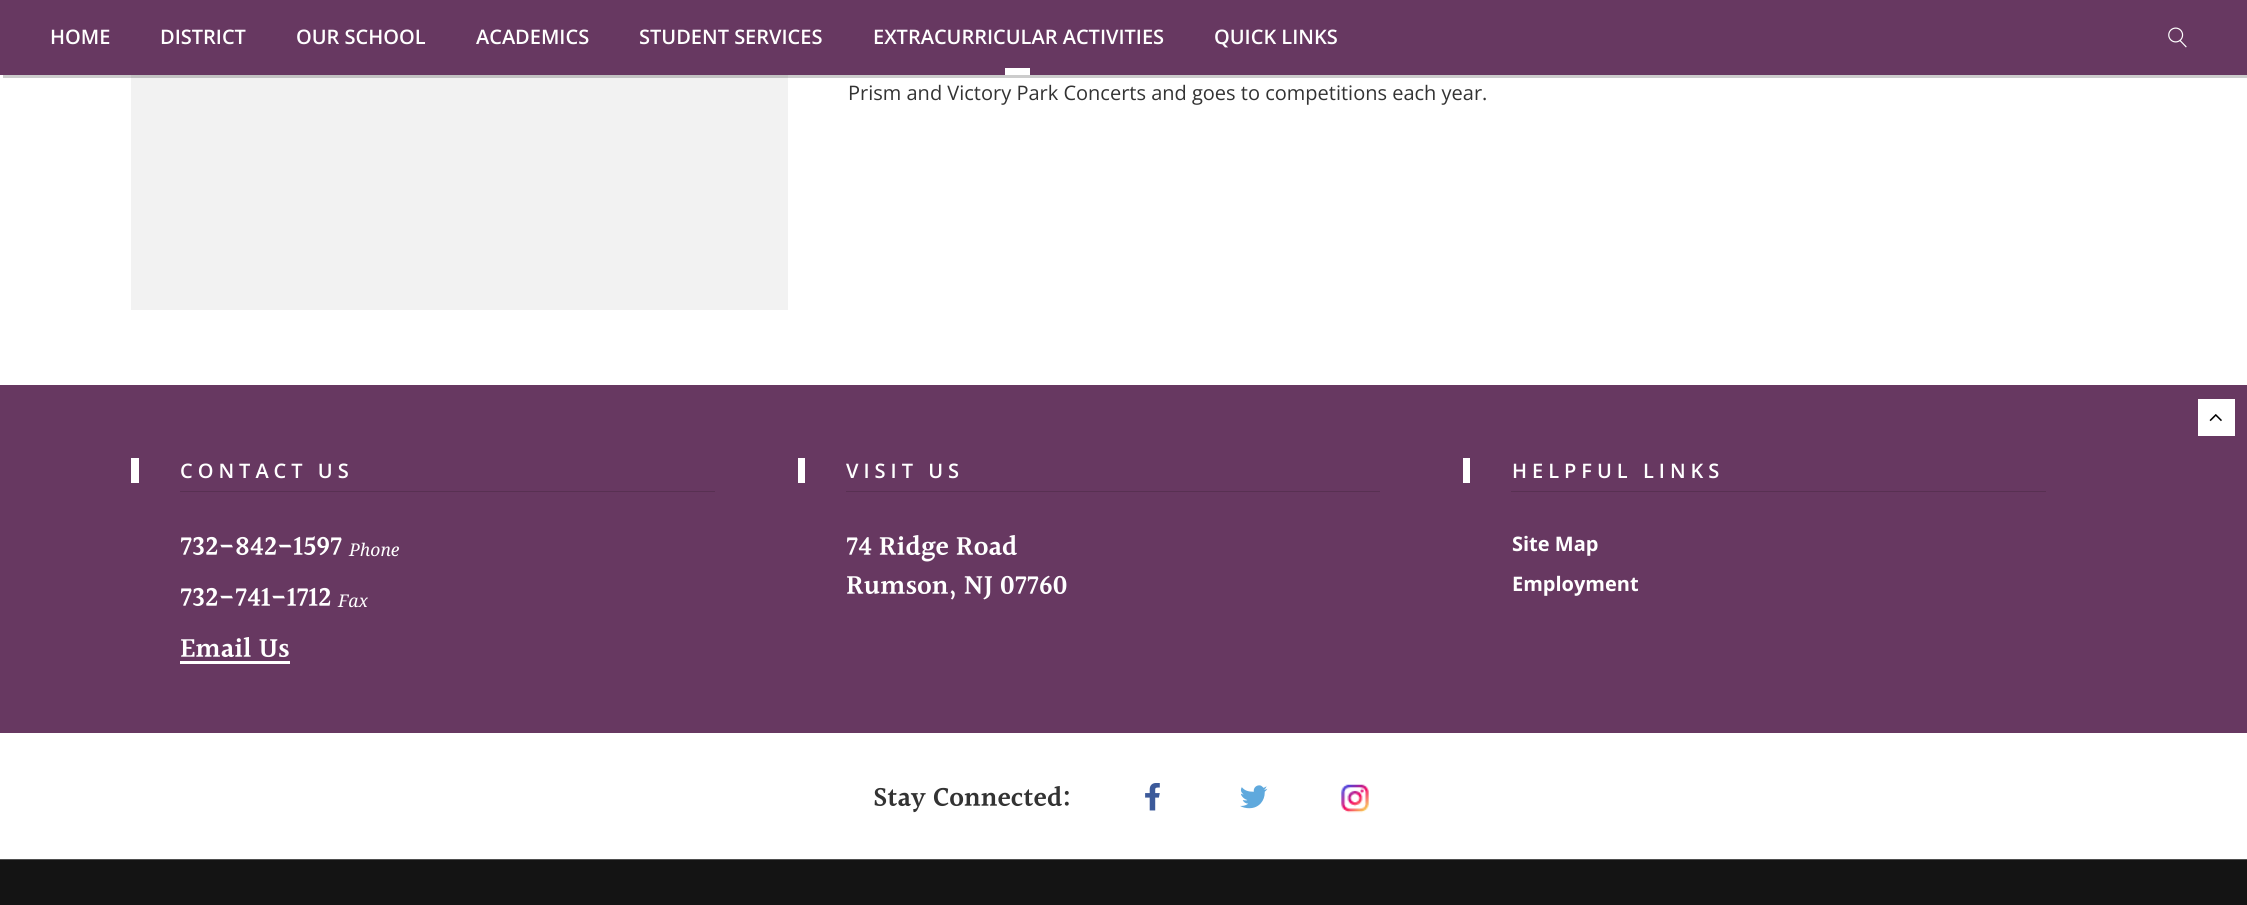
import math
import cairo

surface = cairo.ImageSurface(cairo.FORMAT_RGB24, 2247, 905)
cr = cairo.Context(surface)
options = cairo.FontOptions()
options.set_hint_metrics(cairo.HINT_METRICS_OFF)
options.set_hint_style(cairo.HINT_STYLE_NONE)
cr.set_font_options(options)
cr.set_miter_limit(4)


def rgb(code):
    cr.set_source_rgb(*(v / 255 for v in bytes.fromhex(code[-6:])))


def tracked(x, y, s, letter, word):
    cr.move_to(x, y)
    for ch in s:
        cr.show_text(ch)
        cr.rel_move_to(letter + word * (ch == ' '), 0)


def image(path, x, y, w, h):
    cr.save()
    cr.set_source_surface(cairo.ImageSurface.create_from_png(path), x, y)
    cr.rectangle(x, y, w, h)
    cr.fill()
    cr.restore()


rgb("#ffffff")
cr.paint()
rgb("#f2f2f2")
cr.rectangle(131, 75, 657, 235)
cr.fill()
cr.set_source_rgba(0, 0, 0, 0.2)
cr.new_path()
cr.move_to(3, 75)
cr.line_to(3, 78)
cr.line_to(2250, 78)
cr.line_to(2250, 3)
cr.line_to(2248, 3)
cr.line_to(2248, 75)
cr.close_path()
cr.fill()
rgb("#673861")
cr.rectangle(0, 0, 2247, 75)
cr.fill()
rgb("#ffffff")
cr.rectangle(1005, 68, 25, 7)
cr.fill()
image("img/1.png", 2168, 27, 19, 21)
rgb("#673861")
cr.rectangle(0, 385, 2247, 348)
cr.fill()
rgb("#ffffff")
cr.rectangle(2198, 399, 37, 37)
cr.fill()
image("img/2.png", 2209, 414, 13, 8)
for x, y, w, h, color in [
    (180, 491, 535, 1, "#583052"),
    (131, 458, 8, 25, "#ffffff"),
    (180, 661, 110, 3, "#ffffff"),
    (846, 491, 534, 1, "#583052"),
    (798, 458, 7, 25, "#ffffff"),
    (1511, 491, 535, 1, "#583052"),
    (1463, 458, 7, 25, "#ffffff"),
]:
    rgb(color)
    cr.rectangle(x, y, w, h)
    cr.fill()
image("img/3.png", 1145, 783, 15, 28)
image("img/4.png", 1240, 785, 28, 24)
image("img/5.png", 1341, 784, 28, 29)
rgb("#141414")
cr.rectangle(0, 860, 2247, 45)
cr.fill()
rgb("#4f4f4f")
cr.rectangle(0, 859, 2247, 1)
cr.fill()
cr.select_font_face("Open Sans SemiBold")
cr.set_font_size(20)
rgb("#ffffff")
for x, y, s in [
    (50, 44, "HOME"),
    (160, 44, "DISTRICT"),
    (296, 44, "OUR SCHOOL"),
    (476, 44, "ACADEMICS"),
    (639, 44, "STUDENT SERVICES"),
    (873, 44, "EXTRACURRICULAR ACTIVITIES"),
    (1214, 44, "QUICK LINKS"),
]:
    cr.move_to(x, y)
    cr.show_text(s)
cr.select_font_face("Open Sans")
rgb("#333333")
cr.move_to(848, 100)
cr.show_text("Prism and Victory Park Concerts and goes to competitions each year.")
cr.select_font_face("Open Sans SemiBold")
rgb("#ffffff")
tracked(180, 478, "CONTACT US", 5, 0)
cr.select_font_face("Halant SemiBold")
cr.set_font_size(27.5)
cr.move_to(180, 556)
cr.show_text("732-842-1597")
cr.select_font_face("Noto Serif", cairo.FONT_SLANT_ITALIC)
cr.set_font_size(17.5)
cr.move_to(349, 556)
cr.show_text("Phone")
cr.select_font_face("Halant SemiBold")
cr.set_font_size(27.5)
cr.move_to(180, 607)
cr.show_text("732-741-1712")
cr.select_font_face("Noto Serif", cairo.FONT_SLANT_ITALIC)
cr.set_font_size(17.5)
cr.move_to(338, 607)
cr.show_text("Fax")
cr.select_font_face("Halant SemiBold")
cr.set_font_size(27.5)
cr.move_to(180, 658)
cr.show_text("Email Us")
cr.select_font_face("Open Sans SemiBold")
cr.set_font_size(20)
tracked(846, 478, "VISIT US", 5, 0)
cr.select_font_face("Halant SemiBold")
cr.set_font_size(27.5)
cr.move_to(846, 556)
cr.show_text("74 Ridge Road")
cr.move_to(846, 595)
cr.show_text("Rumson, NJ 07760")
cr.select_font_face("Open Sans SemiBold")
cr.set_font_size(20)
tracked(1512, 478, "HELPFUL LINKS", 5, 0)
cr.select_font_face("Open Sans", cairo.FONT_SLANT_NORMAL, cairo.FONT_WEIGHT_BOLD)
cr.move_to(1512, 551)
cr.show_text("Site Map")
cr.move_to(1512, 591)
cr.show_text("Employment")
cr.select_font_face("Halant SemiBold")
cr.set_font_size(27.5)
rgb("#333333")
cr.move_to(873, 807)
cr.show_text("Stay Connected:")
surface.write_to_png("page.png")
